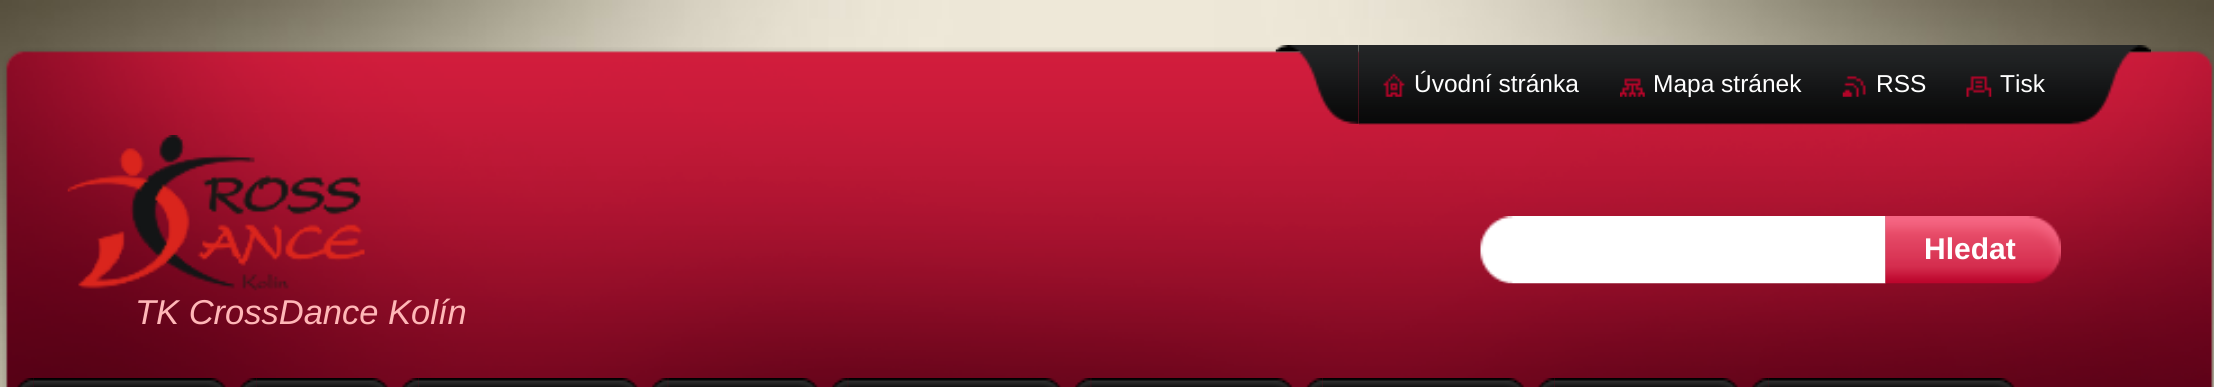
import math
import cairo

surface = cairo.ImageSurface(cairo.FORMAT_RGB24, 2214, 387)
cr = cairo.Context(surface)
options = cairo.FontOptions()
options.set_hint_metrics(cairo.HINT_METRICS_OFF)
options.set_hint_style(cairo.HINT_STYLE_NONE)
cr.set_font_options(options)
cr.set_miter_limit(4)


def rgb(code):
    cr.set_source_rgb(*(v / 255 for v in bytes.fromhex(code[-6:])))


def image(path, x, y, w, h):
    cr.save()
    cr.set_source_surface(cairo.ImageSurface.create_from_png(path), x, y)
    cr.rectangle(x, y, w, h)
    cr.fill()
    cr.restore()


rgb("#ffffff")
cr.paint()
image("img/1.png", 0, 0, 2214, 387)
image("img/10.png", 2, 47, 2212, 340)
image("img/2.png", 1275, 45, 85, 79)
image("img/3.png", 1359, 45, 792, 80)
image("img/4.png", 1383, 73, 22, 24)
image("img/5.png", 1620, 78, 25, 19)
image("img/6.png", 1842, 76, 24, 21)
image("img/7.png", 1966, 76, 26, 21)
image("img/8.png", 1480, 216, 406, 68)
image("img/9.png", 1885, 216, 176, 68)
image("img/11.png", 67, 135, 298, 156)
image("img/12.png", 17, 378, 17, 9)
image("img/13.png", 33, 378, 193, 9)
image("img/14.png", 239, 378, 18, 9)
image("img/15.png", 256, 378, 133, 9)
image("img/16.png", 401, 378, 18, 9)
image("img/17.png", 418, 378, 221, 9)
image("img/18.png", 651, 378, 18, 9)
image("img/19.png", 668, 378, 151, 9)
image("img/20.png", 831, 378, 18, 9)
image("img/21.png", 848, 378, 214, 9)
image("img/22.png", 1074, 378, 18, 9)
image("img/23.png", 1091, 378, 202, 9)
image("img/24.png", 1305, 378, 18, 9)
image("img/25.png", 1323, 378, 202, 9)
image("img/26.png", 1537, 378, 18, 9)
image("img/27.png", 1554, 378, 184, 9)
image("img/28.png", 1751, 378, 18, 9)
image("img/29.png", 1768, 378, 247, 9)
cr.select_font_face("Liberation Sans")
cr.set_font_size(24.5)
rgb("#ffffff")
for x, y, s in [
    (1414, 92, "Úvodní stránka"),
    (1653, 92, "Mapa stránek"),
    (1876, 92, "RSS"),
    (2000, 92, "Tisk"),
]:
    cr.move_to(x, y)
    cr.show_text(s)
cr.select_font_face("Liberation Sans", cairo.FONT_SLANT_NORMAL, cairo.FONT_WEIGHT_BOLD)
cr.set_font_size(30)
cr.move_to(1924, 259)
cr.show_text("Hledat")
cr.select_font_face("Liberation Sans", cairo.FONT_SLANT_ITALIC)
cr.set_font_size(34.5)
rgb("#ffb7b7")
cr.move_to(135, 324)
cr.show_text("TK CrossDance Kolín")
surface.write_to_png("page.png")
